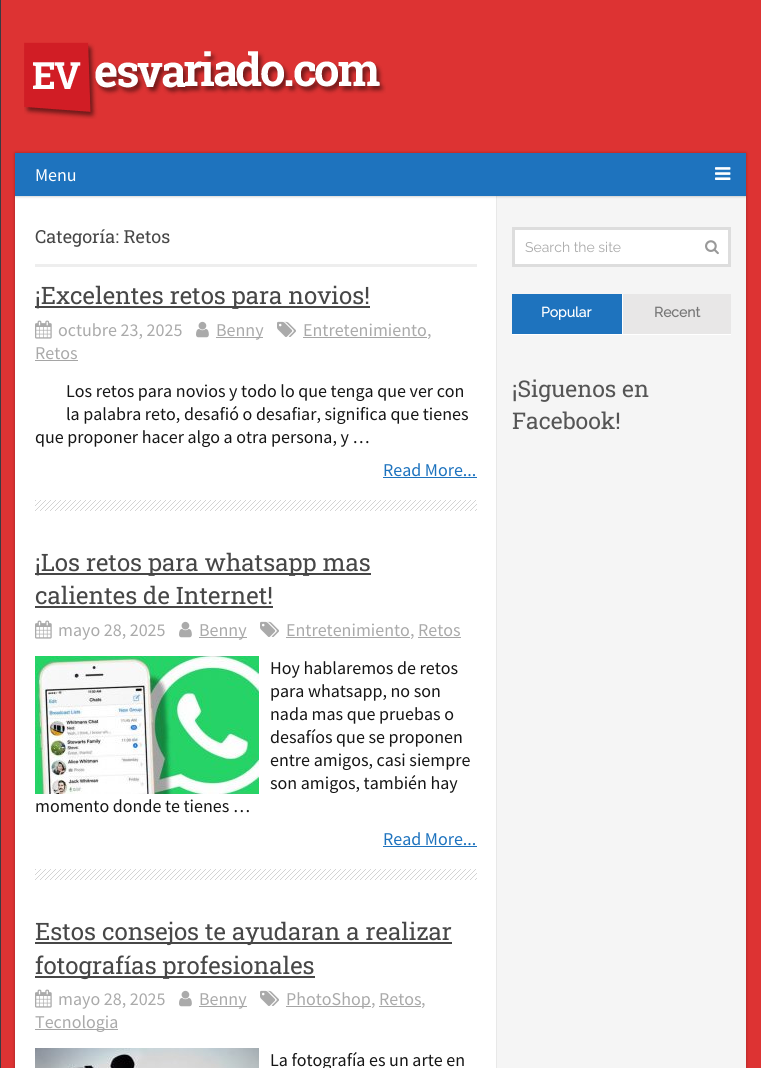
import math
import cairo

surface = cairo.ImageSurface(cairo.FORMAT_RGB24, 761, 1068)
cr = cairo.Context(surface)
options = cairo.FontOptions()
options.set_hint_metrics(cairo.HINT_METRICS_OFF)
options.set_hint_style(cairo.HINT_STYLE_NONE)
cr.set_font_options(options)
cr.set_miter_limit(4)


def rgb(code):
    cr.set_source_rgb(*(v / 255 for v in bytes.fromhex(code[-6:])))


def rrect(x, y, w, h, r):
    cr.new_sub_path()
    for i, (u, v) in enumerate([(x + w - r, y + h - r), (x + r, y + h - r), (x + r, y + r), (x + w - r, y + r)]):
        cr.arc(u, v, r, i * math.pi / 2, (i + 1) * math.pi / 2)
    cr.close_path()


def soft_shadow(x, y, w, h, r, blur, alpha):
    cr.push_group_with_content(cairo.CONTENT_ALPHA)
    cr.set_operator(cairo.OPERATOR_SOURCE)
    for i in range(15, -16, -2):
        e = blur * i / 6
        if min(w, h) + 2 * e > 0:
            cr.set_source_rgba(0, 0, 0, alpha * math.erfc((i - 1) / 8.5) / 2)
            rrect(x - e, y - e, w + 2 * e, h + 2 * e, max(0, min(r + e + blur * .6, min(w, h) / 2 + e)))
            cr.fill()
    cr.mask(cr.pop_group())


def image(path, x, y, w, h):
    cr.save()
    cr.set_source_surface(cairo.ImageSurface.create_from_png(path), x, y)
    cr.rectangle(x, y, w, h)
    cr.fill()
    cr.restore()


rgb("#dd3333")
cr.paint()
image("img/1.png", 24, 42, 362, 77)
rgb("#000000")
soft_shadow(15, 197, 731, 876, 0, 1.5, 0.3)
for x, y, w, h, color in [
    (497, 196, 249, 872, "#f5f5f5"),
    (15, 196, 481, 872, "#ffffff"),
    (496, 196, 1, 872, "#e8e8e8"),
]:
    rgb(color)
    cr.rectangle(x, y, w, h)
    cr.fill()
rgb("#000000")
soft_shadow(15, 153, 731, 43, 0, 1.5, 0.3)
rgb("#3a3a41")
cr.rectangle(0, 0, 1, 1068)
cr.fill()
rgb("#1e73be")
cr.rectangle(15, 153, 731, 43)
cr.fill()
image("img/2.png", 715, 167, 16, 13)
rgb("#eeeeee")
cr.rectangle(35, 264, 442, 3)
cr.fill()
image("img/3.png", 35, 500, 442, 11)
rgb("#474747")
cr.rectangle(35, 306, 335, 2)
cr.fill()
image("img/4.png", 277, 321, 19, 16)
rgb("#a5a5a5")
cr.rectangle(303, 337, 124, 1)
cr.fill()
cr.rectangle(35, 360, 43, 1)
cr.fill()
image("img/5.png", 35, 320, 17, 19)
image("img/6.png", 196, 321, 13, 17)
cr.rectangle(216, 337, 47, 1)
cr.fill()
rgb("#1e73be")
cr.rectangle(383, 477, 94, 1)
cr.fill()
image("img/3.png", 35, 869, 442, 11)
rgb("#474747")
cr.rectangle(35, 573, 336, 2)
cr.fill()
cr.rectangle(35, 606, 238, 2)
cr.fill()
image("img/5.png", 35, 620, 17, 19)
image("img/6.png", 179, 621, 13, 17)
rgb("#a5a5a5")
cr.rectangle(199, 637, 48, 1)
cr.fill()
image("img/4.png", 260, 621, 19, 16)
cr.rectangle(286, 637, 124, 1)
cr.fill()
cr.rectangle(418, 637, 43, 1)
cr.fill()
image("img/7.png", 35, 656, 224, 138)
for x, y, w, h, color in [
    (383, 846, 94, 1, "#1e73be"),
    (35, 942, 417, 2, "#474747"),
    (35, 976, 280, 2, "#474747"),
]:
    rgb(color)
    cr.rectangle(x, y, w, h)
    cr.fill()
image("img/4.png", 260, 990, 19, 16)
for x, y, w, h, color in [
    (286, 1006, 85, 1, "#a5a5a5"),
    (379, 1006, 42, 1, "#a5a5a5"),
    (35, 1029, 83, 1, "#a5a5a5"),
]:
    rgb(color)
    cr.rectangle(x, y, w, h)
    cr.fill()
image("img/5.png", 35, 989, 17, 19)
image("img/6.png", 179, 990, 13, 17)
cr.rectangle(199, 1006, 48, 1)
cr.fill()
image("img/8.png", 35, 1048, 224, 20)
cr.rectangle(513.5, 228.5, 216, 37)
rgb("#dddddd")
cr.set_line_width(3)
cr.stroke()
rgb("#ffffff")
cr.rectangle(515, 230, 213, 34)
cr.fill()
image("img/9.png", 705, 240, 14, 15)
for x, y, w, h, color in [
    (512, 294, 110, 40, "#1e73be"),
    (512, 334, 219, 1, "#ffffff"),
    (623, 294, 108, 40, "#e8e7e7"),
    (622, 294, 1, 41, "#ffffff"),
]:
    rgb(color)
    cr.rectangle(x, y, w, h)
    cr.fill()
cr.select_font_face("Source Sans Pro")
cr.set_font_size(18)
cr.move_to(35, 181)
cr.show_text("Menu")
cr.select_font_face("Roboto Slab")
rgb("#474747")
cr.move_to(35, 243)
cr.show_text("Categoría: Retos")
cr.set_font_size(24)
cr.move_to(35, 304)
cr.show_text("¡Excelentes retos para novios!")
cr.select_font_face("Source Sans Pro")
cr.set_font_size(18)
rgb("#aaaaaa")
for x, y, s in [
    (303, 336, "Entretenimiento"),
    (427, 336, ","),
    (35, 359, "Retos"),
    (58, 336, "octubre 23, 2025"),
    (216, 336, "Benny"),
]:
    cr.move_to(x, y)
    cr.show_text(s)
rgb("#161616")
for x, y, s in [
    (66, 397, "Los retos para novios y todo lo que tenga que ver con"),
    (66, 420, "la palabra reto, desafió o desafiar, significa que tienes"),
    (35, 443, "que proponer hacer algo a otra persona, y …"),
]:
    cr.move_to(x, y)
    cr.show_text(s)
rgb("#1e73be")
cr.move_to(383, 476)
cr.show_text("Read More...")
cr.select_font_face("Roboto Slab")
cr.set_font_size(24)
rgb("#474747")
cr.move_to(35, 571)
cr.show_text("¡Los retos para whatsapp mas")
cr.move_to(35, 604)
cr.show_text("calientes de Internet!")
cr.select_font_face("Source Sans Pro")
cr.set_font_size(18)
rgb("#aaaaaa")
for x, y, s in [
    (58, 636, "mayo 28, 2025"),
    (199, 636, "Benny"),
    (286, 636, "Entretenimiento"),
    (410, 636, ","),
    (418, 636, "Retos"),
]:
    cr.move_to(x, y)
    cr.show_text(s)
rgb("#161616")
for x, y, s in [
    (270, 674, "Hoy hablaremos de retos"),
    (270, 697, "para whatsapp, no son"),
    (270, 720, "nada mas que pruebas o"),
    (270, 743, "desafíos que se proponen"),
    (270, 766, "entre amigos, casi siempre"),
    (270, 789, "son amigos, también hay"),
    (35, 812, "momento donde te tienes …"),
]:
    cr.move_to(x, y)
    cr.show_text(s)
rgb("#1e73be")
cr.move_to(383, 845)
cr.show_text("Read More...")
cr.select_font_face("Roboto Slab")
cr.set_font_size(24)
rgb("#474747")
cr.move_to(35, 940)
cr.show_text("Estos consejos te ayudaran a realizar")
cr.move_to(35, 974)
cr.show_text("fotografías profesionales")
cr.select_font_face("Source Sans Pro")
cr.set_font_size(18)
rgb("#aaaaaa")
for x, y, s in [
    (286, 1005, "PhotoShop"),
    (371, 1005, ","),
    (379, 1005, "Retos"),
    (421, 1005, ","),
    (35, 1028, "Tecnologia"),
    (58, 1005, "mayo 28, 2025"),
    (199, 1005, "Benny"),
]:
    cr.move_to(x, y)
    cr.show_text(s)
rgb("#161616")
cr.move_to(270, 1066)
cr.show_text("La fotografía es un arte en")
cr.select_font_face("Raleway")
cr.set_font_size(14)
rgb("#aaaaaa")
cr.move_to(525, 252)
cr.show_text("Search the site")
cr.select_font_face("Raleway", cairo.FONT_SLANT_NORMAL, cairo.FONT_WEIGHT_BOLD)
rgb("#ffffff")
cr.move_to(541, 317)
cr.show_text("Popular")
rgb("#777777")
cr.move_to(654, 317)
cr.show_text("Recent")
cr.select_font_face("Roboto Slab")
cr.set_font_size(23)
rgb("#555555")
cr.move_to(512, 397)
cr.show_text("¡Siguenos en")
cr.move_to(512, 429)
cr.show_text("Facebook!")
surface.write_to_png("page.png")
